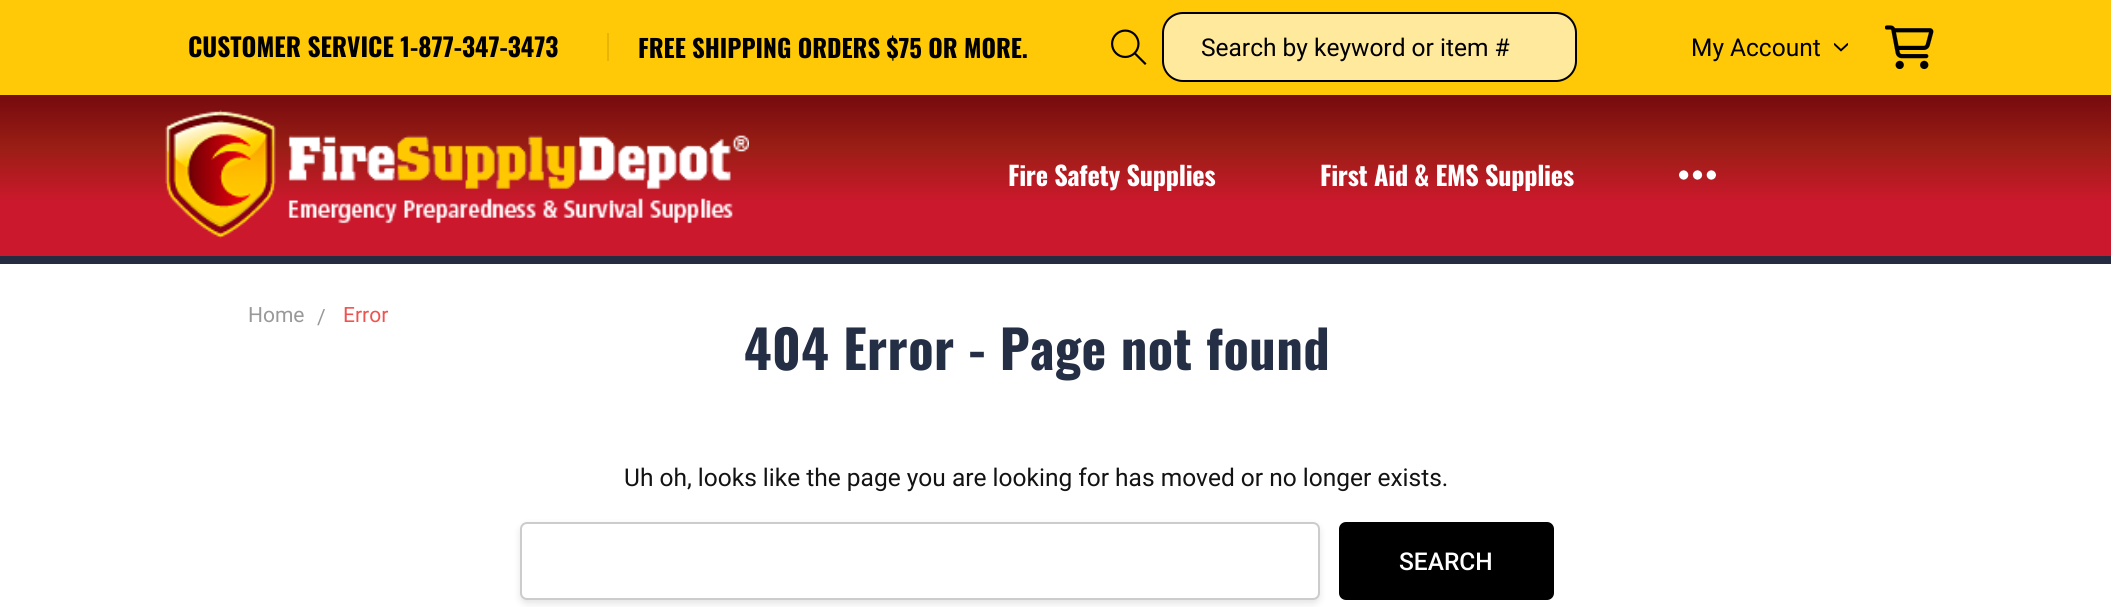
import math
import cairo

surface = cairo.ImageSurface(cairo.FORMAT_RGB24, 2111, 607)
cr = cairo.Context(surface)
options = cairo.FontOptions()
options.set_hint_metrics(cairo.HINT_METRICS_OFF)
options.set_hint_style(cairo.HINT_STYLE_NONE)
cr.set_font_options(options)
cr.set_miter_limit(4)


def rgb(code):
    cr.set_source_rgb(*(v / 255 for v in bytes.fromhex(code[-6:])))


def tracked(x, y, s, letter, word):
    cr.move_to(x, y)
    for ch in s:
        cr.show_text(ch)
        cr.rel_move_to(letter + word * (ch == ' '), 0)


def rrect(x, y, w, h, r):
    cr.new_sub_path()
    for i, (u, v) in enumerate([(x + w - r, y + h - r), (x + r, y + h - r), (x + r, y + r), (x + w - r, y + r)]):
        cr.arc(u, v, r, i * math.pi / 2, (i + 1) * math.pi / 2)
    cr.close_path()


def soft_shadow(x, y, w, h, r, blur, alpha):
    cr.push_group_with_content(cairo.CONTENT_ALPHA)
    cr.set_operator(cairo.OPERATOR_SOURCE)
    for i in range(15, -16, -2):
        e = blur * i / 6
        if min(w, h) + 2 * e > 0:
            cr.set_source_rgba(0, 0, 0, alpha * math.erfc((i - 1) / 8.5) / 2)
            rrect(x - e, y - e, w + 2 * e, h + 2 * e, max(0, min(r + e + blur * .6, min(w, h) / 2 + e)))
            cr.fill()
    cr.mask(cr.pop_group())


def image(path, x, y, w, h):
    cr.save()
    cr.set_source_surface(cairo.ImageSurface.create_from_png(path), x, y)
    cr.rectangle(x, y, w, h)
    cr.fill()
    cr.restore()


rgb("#ffffff")
cr.paint()
for x, y, w, h, color in [
    (0, 0, 2111, 95, "#ffc907"),
    (0, 256, 2111, 8, "#252c42"),
    (607, 33, 2, 28, "#e6b506"),
]:
    rgb(color)
    cr.rectangle(x, y, w, h)
    cr.fill()
image("img/1.png", 1111, 29, 36, 36)
rgb("#ffe99d")
rrect(1163, 13, 413, 68, 20)
cr.fill_preserve()
rgb("#000000")
cr.stroke()
image("img/2.png", 1834, 43, 14, 9)
image("img/3.png", 1885, 25, 49, 45)
gradient = cairo.LinearGradient(1056, 94, 1056, 256)
gradient.add_color_stop_rgba(0, 0.459, 0.039, 0.055, 1)
gradient.add_color_stop_rgba(0.33, 0.604, 0.118, 0.082, 1)
gradient.add_color_stop_rgba(0.67, 0.8, 0.094, 0.176, 1)
gradient.add_color_stop_rgba(1, 0.8, 0.094, 0.176, 1)
cr.set_source(gradient)
cr.rectangle(0, 95, 2111, 161)
cr.fill()
image("img/4.png", 165, 110, 584, 129)
image("img/5.png", 1678, 170, 39, 10)
rgb("#000000")
soft_shadow(520, 525, 800, 79, 7, 3.5, 0.1)
rgb("#ffffff")
rrect(521, 523, 798, 76, 6)
cr.fill_preserve()
rgb("#cccccc")
cr.stroke()
rgb("#000000")
rrect(1340, 523, 213, 76, 6)
cr.fill_preserve()
cr.stroke()
cr.select_font_face("Oswald", cairo.FONT_SLANT_NORMAL, cairo.FONT_WEIGHT_BOLD)
cr.set_font_size(25.4)
cr.move_to(188, 57)
cr.show_text("CUSTOMER SERVICE 1-877-347-3473")
cr.set_font_size(24.75)
cr.move_to(638, 58)
cr.show_text("FREE SHIPPING ORDERS $75 OR MORE.")
cr.select_font_face("Roboto")
cr.set_font_size(24.5)
cr.move_to(1201, 56)
cr.show_text("Search by keyword or item #")
cr.move_to(1691, 56)
cr.show_text("My Account")
cr.select_font_face("Oswald", cairo.FONT_SLANT_NORMAL, cairo.FONT_WEIGHT_BOLD)
cr.set_font_size(26.25)
rgb("#ffffff")
tracked(1008, 186, "Fire Safety Supplies", -0.25, 0)
tracked(1320, 186, "First Aid & EMS Supplies", -0.25, 0)
cr.select_font_face("Roboto")
cr.set_font_size(21)
rgb("#999999")
cr.move_to(248, 322)
cr.show_text("Home")
cr.move_to(317, 324)
cr.show_text("/")
rgb("#ee534f")
cr.move_to(343, 322)
cr.show_text("Error")
cr.select_font_face("Oswald", cairo.FONT_SLANT_NORMAL, cairo.FONT_WEIGHT_BOLD)
cr.set_font_size(52.5)
rgb("#242e44")
tracked(744, 370, "404 Error - Page not found", 0.45, 0)
cr.select_font_face("Roboto")
cr.set_font_size(24.5)
rgb("#131313")
cr.move_to(624, 486)
cr.show_text("Uh oh, looks like the page you are looking for has moved or no longer exists.")
cr.select_font_face("Roboto Medium")
rgb("#ffffff")
cr.move_to(1399, 570)
cr.show_text("SEARCH")
surface.write_to_png("page.png")
